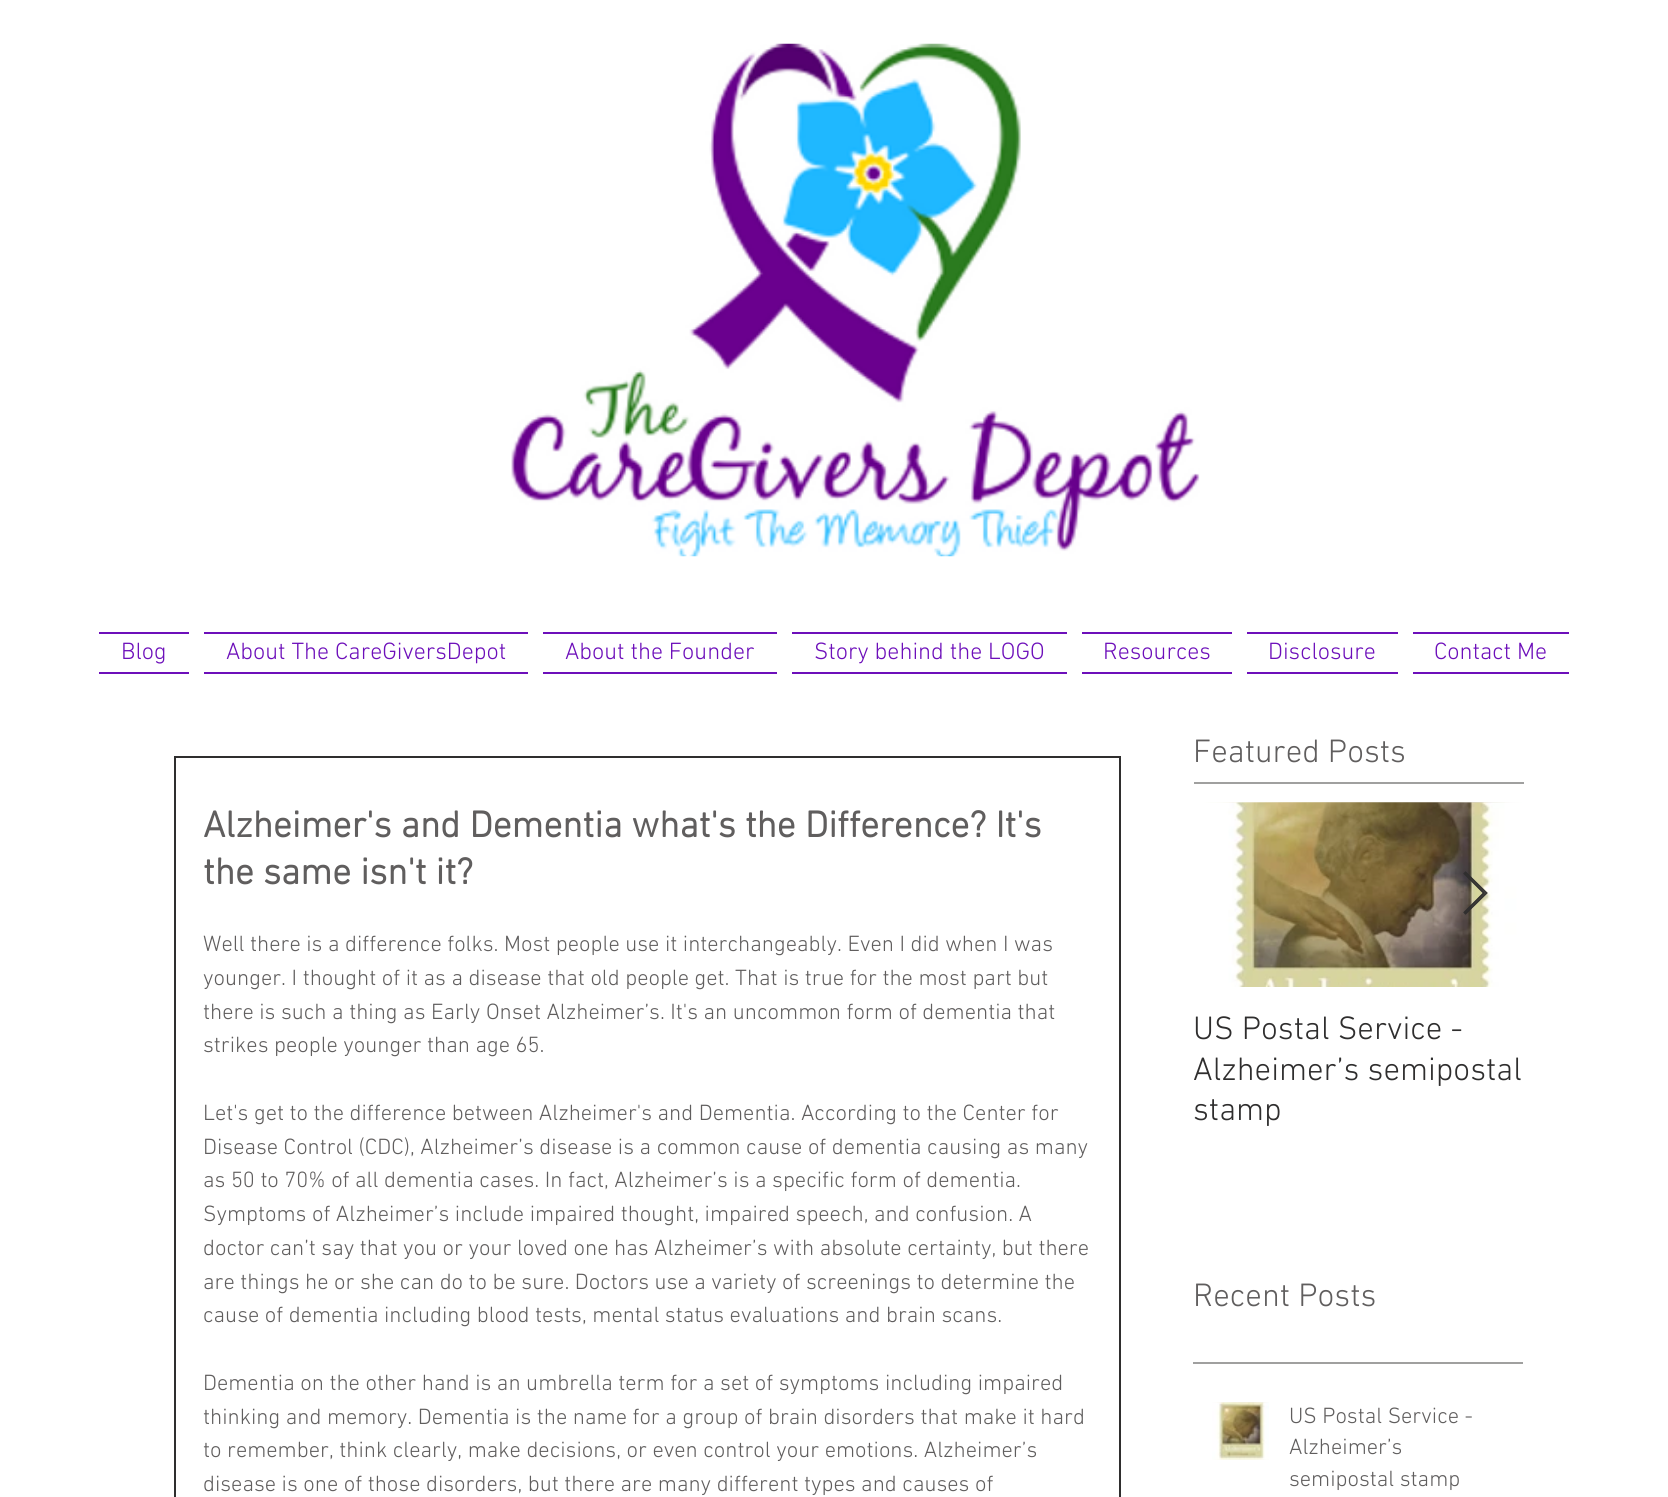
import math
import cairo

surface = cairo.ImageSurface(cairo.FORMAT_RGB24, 1668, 1497)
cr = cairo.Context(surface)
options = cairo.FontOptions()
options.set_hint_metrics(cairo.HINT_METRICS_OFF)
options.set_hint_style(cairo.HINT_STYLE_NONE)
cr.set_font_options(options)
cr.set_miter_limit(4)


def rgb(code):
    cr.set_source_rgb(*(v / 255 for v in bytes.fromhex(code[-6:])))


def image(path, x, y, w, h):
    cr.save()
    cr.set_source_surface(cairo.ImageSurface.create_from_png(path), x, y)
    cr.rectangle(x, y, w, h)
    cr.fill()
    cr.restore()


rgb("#ffffff")
cr.paint()
image("img/1.png", 511, 43, 689, 514)
for x, y, w, h, color in [
    (99, 632, 90, 2, "#6d0fba"),
    (99, 672, 90, 2, "#6d0fba"),
    (204, 632, 324, 2, "#6d0fba"),
    (204, 672, 324, 2, "#6d0fba"),
    (543, 632, 234, 2, "#6d0fba"),
    (543, 672, 234, 2, "#6d0fba"),
    (792, 632, 275, 2, "#6d0fba"),
    (792, 672, 275, 2, "#6d0fba"),
    (1082, 632, 150, 2, "#6d0fba"),
    (1082, 672, 150, 2, "#6d0fba"),
    (1247, 632, 151, 2, "#6d0fba"),
    (1247, 672, 151, 2, "#6d0fba"),
    (1413, 632, 156, 2, "#6d0fba"),
    (1413, 672, 156, 2, "#6d0fba"),
    (1194, 782, 330, 2, "#a0a09f"),
]:
    rgb(color)
    cr.rectangle(x, y, w, h)
    cr.fill()
cr.rectangle(175, 757, 945, 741)
rgb("#2f2e2e")
cr.stroke()
image("img/2.png", 1204, 802, 318, 1)
image("img/3.png", 1204, 802, 318, 185)
cr.set_source_rgba(0.184, 0.18, 0.18, 0.9)
cr.new_path()
cr.move_to(1464, 874)
cr.line_to(1466, 872)
cr.line_to(1487, 893)
cr.line_to(1466, 914)
cr.line_to(1464, 912)
cr.line_to(1483, 893)
cr.close_path()
cr.fill()
cr.new_path()
cr.move_to(1464, 873.5)
cr.line_to(1465.5, 872)
cr.line_to(1487, 893)
cr.line_to(1465.5, 914)
cr.line_to(1464, 912.5)
cr.line_to(1483.5, 893)
cr.close_path()
cr.set_line_width(1.2)
cr.stroke()
rgb("#a0a09f")
cr.rectangle(1193, 1362, 330, 2)
cr.fill()
image("img/4.png", 1212, 1402, 57, 58)
image("img/5.png", 1212, 1402, 57, 58)
cr.select_font_face("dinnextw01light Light")
cr.set_font_size(24)
rgb("#6d0fba")
for x, y, s in [
    (121, 659, "Blog"),
    (226, 659, "About The CareGiversDepot"),
    (565, 659, "About the Founder"),
    (814, 659, "Story behind the LOGO"),
    (1103, 659, "Resources"),
    (1268, 659, "Disclosure"),
    (1434, 659, "Contact Me"),
]:
    cr.move_to(x, y)
    cr.show_text(s)
cr.set_font_size(33)
rgb("#605e5e")
cr.move_to(1193, 762)
cr.show_text("Featured Posts")
cr.select_font_face("dinnextw01light", cairo.FONT_SLANT_NORMAL, cairo.FONT_WEIGHT_BOLD)
cr.set_font_size(37.5)
cr.move_to(203, 837)
cr.show_text("Alzheimer's and Dementia what's the Difference? It's")
cr.move_to(203, 884)
cr.show_text("the same isn't it?")
cr.select_font_face("dinnextw01light Light")
cr.set_font_size(22.5)
for x, y, s in [
    (203, 951, "Well there is a difference folks. Most people use it interchangeably. Even I did when I was"),
    (203, 985, "younger. I thought of it as a disease that old people get. That is true for the most part but"),
    (203, 1019, "there is such a thing as Early Onset Alzheimer’s. It's an uncommon form of dementia that"),
    (203, 1052, "strikes people younger than age 65."),
    (203, 1120, "Let's get to the difference between Alzheimer's and Dementia. According to the Center for"),
    (203, 1154, "Disease Control (CDC), Alzheimer’s disease is a common cause of dementia causing as many"),
    (203, 1187, "as 50 to 70% of all dementia cases. In fact, Alzheimer’s is a specific form of dementia."),
    (203, 1221, "Symptoms of Alzheimer’s include impaired thought, impaired speech, and confusion. A"),
    (203, 1255, "doctor can’t say that you or your loved one has Alzheimer’s with absolute certainty, but there"),
    (203, 1289, "are things he or she can do to be sure. Doctors use a variety of screenings to determine the"),
    (203, 1322, "cause of dementia including blood tests, mental status evaluations and brain scans."),
    (203, 1390, "Dementia on the other hand is an umbrella term for a set of symptoms including impaired"),
    (203, 1424, "thinking and memory. Dementia is the name for a group of brain disorders that make it hard"),
    (203, 1457, "to remember, think clearly, make decisions, or even control your emotions. Alzheimer’s"),
    (203, 1491, "disease is one of those disorders, but there are many different types and causes of"),
]:
    cr.move_to(x, y)
    cr.show_text(s)
cr.set_font_size(33)
rgb("#2f2e2e")
for x, y, s in [
    (1193, 1039, "US Postal Service -"),
    (1193, 1080, "Alzheimer’s semipostal"),
    (1193, 1120, "stamp"),
]:
    cr.move_to(x, y)
    cr.show_text(s)
rgb("#605e5e")
cr.move_to(1193, 1306)
cr.show_text("Recent Posts")
cr.set_font_size(22.5)
for x, y, s in [
    (1289, 1423, "US Postal Service -"),
    (1289, 1454, "Alzheimer’s"),
    (1289, 1486, "semipostal stamp"),
]:
    cr.move_to(x, y)
    cr.show_text(s)
surface.write_to_png("page.png")
